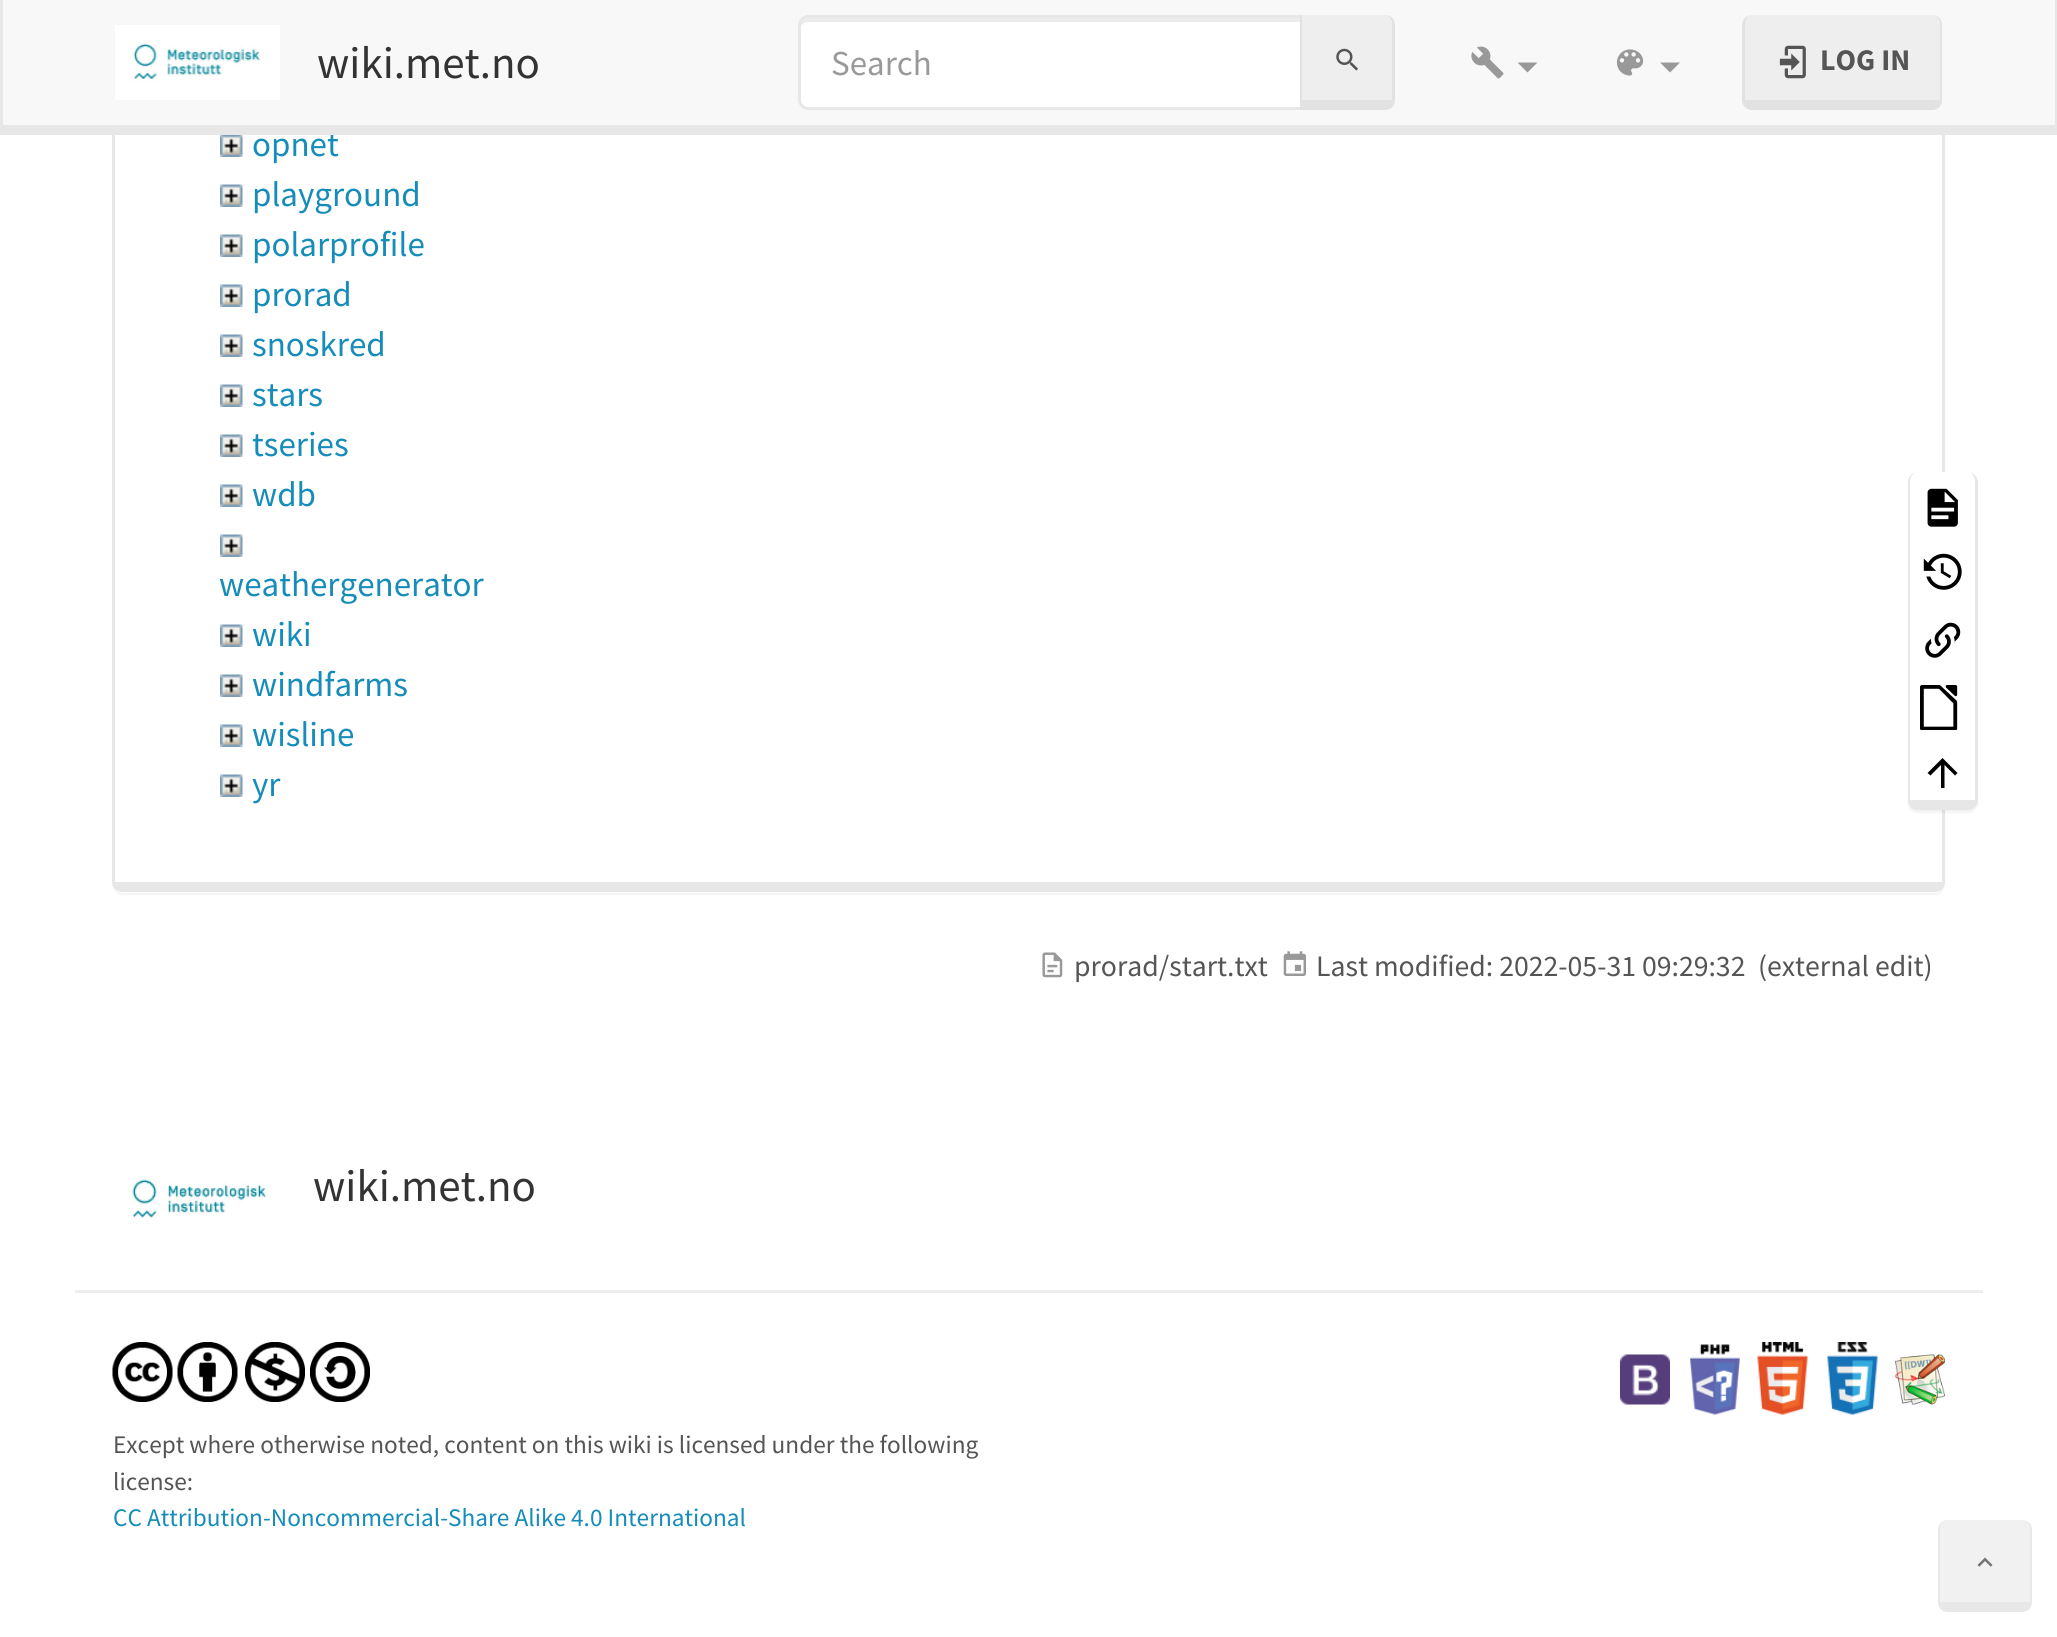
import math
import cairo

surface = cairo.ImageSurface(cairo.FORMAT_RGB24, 2057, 1637)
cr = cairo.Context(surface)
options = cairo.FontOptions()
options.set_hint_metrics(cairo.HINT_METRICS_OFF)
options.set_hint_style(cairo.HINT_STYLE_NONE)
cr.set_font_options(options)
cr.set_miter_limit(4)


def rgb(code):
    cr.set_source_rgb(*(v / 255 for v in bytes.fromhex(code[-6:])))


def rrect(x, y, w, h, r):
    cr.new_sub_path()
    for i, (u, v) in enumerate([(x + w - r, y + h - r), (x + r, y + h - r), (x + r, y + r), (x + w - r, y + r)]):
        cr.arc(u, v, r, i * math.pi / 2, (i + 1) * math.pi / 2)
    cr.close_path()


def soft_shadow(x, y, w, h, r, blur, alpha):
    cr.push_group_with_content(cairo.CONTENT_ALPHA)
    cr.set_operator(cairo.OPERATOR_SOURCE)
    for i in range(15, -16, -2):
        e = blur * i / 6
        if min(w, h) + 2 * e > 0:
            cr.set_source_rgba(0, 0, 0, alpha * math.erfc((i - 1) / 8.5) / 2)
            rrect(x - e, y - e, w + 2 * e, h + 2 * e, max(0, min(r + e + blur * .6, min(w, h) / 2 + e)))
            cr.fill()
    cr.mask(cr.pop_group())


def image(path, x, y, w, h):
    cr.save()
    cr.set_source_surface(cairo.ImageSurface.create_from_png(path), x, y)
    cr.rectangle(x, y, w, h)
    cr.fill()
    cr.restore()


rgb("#ffffff")
cr.paint()
cr.save()
cr.set_fill_rule(cairo.FILL_RULE_EVEN_ODD)
cr.new_path()
cr.move_to(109, 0)
cr.line_to(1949, 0)
cr.line_to(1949, 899)
cr.line_to(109, 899)
cr.close_path()
cr.move_to(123, -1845)
cr.line_to(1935, -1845)
cr.curve_to(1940.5, -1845, 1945, -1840.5, 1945, -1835)
cr.line_to(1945, 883)
cr.curve_to(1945, 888.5, 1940.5, 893, 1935, 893)
cr.line_to(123, 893)
cr.curve_to(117.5, 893, 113, 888.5, 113, 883)
cr.line_to(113, -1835)
cr.curve_to(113, -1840.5, 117.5, -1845, 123, -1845)
cr.close_path()
cr.clip()
rgb("#000000")
soft_shadow(113, -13, 1832, 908, 10, 1, 0.05)
cr.restore()
rgb("#e7e7e7")
cr.set_fill_rule(cairo.FILL_RULE_EVEN_ODD)
cr.new_path()
cr.move_to(122, -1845)
cr.line_to(1935, -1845)
cr.curve_to(1941, -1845, 1945, -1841, 1945, -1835)
cr.line_to(1945, 882)
cr.curve_to(1945, 888, 1941, 892, 1935, 892)
cr.line_to(122, 892)
cr.curve_to(117, 892, 112, 888, 112, 882)
cr.line_to(112, -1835)
cr.curve_to(112, -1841, 117, -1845, 122, -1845)
cr.close_path()
cr.move_to(122, -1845)
cr.line_to(1935, -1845)
cr.curve_to(1939, -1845, 1942, -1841, 1942, -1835)
cr.line_to(1942, 882)
cr.line_to(115, 882)
cr.line_to(115, -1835)
cr.curve_to(115, -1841, 118, -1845, 122, -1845)
cr.close_path()
cr.fill()
for x, y, w, h, color in [
    (3, 0, 2052, 125, "#f8f8f8"),
    (2055, 0, 2, 125, "#e7e7e7"),
    (0, 0, 3, 135, "#e7e7e7"),
]:
    rgb(color)
    cr.rectangle(x, y, w, h)
    cr.fill()
image("img/1.png", 115, 25, 165, 75)
rgb("#ffffff")
cr.new_path()
cr.move_to(808, 15)
cr.line_to(1303, 15)
cr.line_to(1303, 110)
cr.line_to(808, 110)
cr.curve_to(802.5, 110, 798, 105.5, 798, 100)
cr.line_to(798, 25)
cr.curve_to(798, 19.5, 802.5, 15, 808, 15)
cr.close_path()
cr.fill()
rgb("#ececec")
cr.set_fill_rule(cairo.FILL_RULE_WINDING)
cr.new_path()
cr.move_to(808, 22)
cr.line_to(1300, 22)
cr.line_to(1300, 18)
cr.line_to(806, 18)
cr.curve_to(800, 19, 800, 25, 800, 30)
cr.curve_to(800, 26, 803, 22, 808, 22)
cr.close_path()
cr.fill()
cr.new_path()
cr.move_to(808, 16.5)
cr.line_to(1301.5, 16.5)
cr.line_to(1301.5, 108.5)
cr.line_to(808, 108.5)
cr.curve_to(803.5, 108.5, 799.5, 104.5, 799.5, 100)
cr.line_to(799.5, 25)
cr.curve_to(799.5, 20.5, 803.5, 16.5, 808, 16.5)
cr.close_path()
rgb("#e7e7e7")
cr.set_line_width(3)
cr.stroke()
rgb("#eeeeee")
cr.new_path()
cr.move_to(1302, 15)
cr.line_to(1385, 15)
cr.curve_to(1389, 15, 1392, 19, 1392, 25)
cr.line_to(1392, 100)
cr.line_to(1302, 100)
cr.close_path()
cr.fill()
rgb("#e2e2e2")
cr.set_fill_rule(cairo.FILL_RULE_EVEN_ODD)
cr.new_path()
cr.move_to(1300, 15)
cr.line_to(1385, 15)
cr.curve_to(1391, 15, 1395, 19, 1395, 25)
cr.line_to(1395, 100)
cr.curve_to(1395, 106, 1391, 110, 1385, 110)
cr.line_to(1300, 110)
cr.close_path()
cr.move_to(1302, 15)
cr.line_to(1385, 15)
cr.curve_to(1389, 15, 1392, 19, 1392, 25)
cr.line_to(1392, 100)
cr.line_to(1302, 100)
cr.close_path()
cr.fill()
image("img/2.png", 1336, 48, 22, 23)
image("img/3.png", 1471, 46, 33, 33)
rgb("#999999")
cr.set_fill_rule(cairo.FILL_RULE_WINDING)
cr.new_path()
cr.move_to(1517.5, 62.5)
cr.line_to(1537.5, 62.5)
cr.line_to(1527.5, 72.5)
cr.close_path()
cr.fill()
image("img/4.png", 1616, 49, 28, 27)
cr.new_path()
cr.move_to(1660, 62.5)
cr.line_to(1680, 62.5)
cr.line_to(1670, 72.5)
cr.close_path()
cr.fill()
rgb("#eeeeee")
cr.new_path()
cr.move_to(1752, 15)
cr.line_to(1932, 15)
cr.curve_to(1937, 15, 1940, 19, 1940, 25)
cr.line_to(1940, 100)
cr.line_to(1745, 100)
cr.line_to(1745, 25)
cr.curve_to(1745, 19, 1748, 15, 1752, 15)
cr.close_path()
cr.fill()
rgb("#e2e2e2")
cr.set_fill_rule(cairo.FILL_RULE_EVEN_ODD)
cr.new_path()
cr.move_to(1752, 15)
cr.line_to(1932, 15)
cr.curve_to(1938, 15, 1942, 19, 1942, 25)
cr.line_to(1942, 100)
cr.curve_to(1942, 106, 1938, 110, 1932, 110)
cr.line_to(1752, 110)
cr.curve_to(1747, 110, 1742, 106, 1742, 100)
cr.line_to(1742, 25)
cr.curve_to(1742, 19, 1747, 15, 1752, 15)
cr.close_path()
cr.move_to(1752, 15)
cr.line_to(1932, 15)
cr.curve_to(1937, 15, 1940, 19, 1940, 25)
cr.line_to(1940, 100)
cr.line_to(1745, 100)
cr.line_to(1745, 25)
cr.curve_to(1745, 19, 1748, 15, 1752, 15)
cr.close_path()
cr.fill()
image("img/5.png", 1779, 45, 27, 34)
image("img/6.png", 220, 135, 23, 22)
image("img/7.png", 220, 184, 23, 23)
image("img/8.png", 220, 234, 23, 23)
image("img/7.png", 220, 284, 23, 23)
image("img/7.png", 220, 334, 23, 23)
image("img/7.png", 220, 384, 23, 23)
image("img/7.png", 220, 434, 23, 23)
image("img/7.png", 220, 484, 23, 23)
image("img/7.png", 220, 534, 23, 23)
image("img/8.png", 220, 624, 23, 23)
image("img/7.png", 220, 674, 23, 23)
image("img/7.png", 220, 724, 23, 23)
image("img/7.png", 220, 774, 23, 23)
rgb("#000000")
soft_shadow(1908, 475, 70, 338, 10, 1, 0.05)
rgb("#ffffff")
cr.set_fill_rule(cairo.FILL_RULE_WINDING)
cr.new_path()
cr.move_to(1918, 472)
cr.line_to(1968, 472)
cr.curve_to(1972, 472, 1975, 477, 1975, 482)
cr.line_to(1975, 800)
cr.line_to(1910, 800)
cr.line_to(1910, 482)
cr.curve_to(1910, 477, 1913, 472, 1918, 472)
cr.close_path()
cr.fill()
rgb("#e7e7e7")
cr.set_fill_rule(cairo.FILL_RULE_EVEN_ODD)
cr.new_path()
cr.move_to(1918, 472)
cr.line_to(1968, 472)
cr.curve_to(1973, 472, 1978, 477, 1978, 482)
cr.line_to(1978, 800)
cr.curve_to(1978, 806, 1973, 810, 1968, 810)
cr.line_to(1918, 810)
cr.curve_to(1912, 810, 1908, 806, 1908, 800)
cr.line_to(1908, 482)
cr.curve_to(1908, 477, 1912, 472, 1918, 472)
cr.close_path()
cr.move_to(1918, 472)
cr.line_to(1968, 472)
cr.curve_to(1972, 472, 1975, 477, 1975, 482)
cr.line_to(1975, 800)
cr.line_to(1910, 800)
cr.line_to(1910, 482)
cr.curve_to(1910, 477, 1913, 472, 1918, 472)
cr.close_path()
cr.fill()
image("img/9.png", 1927, 488, 31, 39)
image("img/10.png", 1923, 553, 39, 37)
image("img/11.png", 1925, 622, 36, 36)
image("img/12.png", 1920, 685, 38, 45)
rgb("#000000")
cr.set_fill_rule(cairo.FILL_RULE_WINDING)
cr.new_path()
cr.move_to(1944.5, 788)
cr.line_to(1941, 788)
cr.line_to(1941, 765)
cr.line_to(1930.5, 775.5)
cr.line_to(1927.5, 773)
cr.line_to(1942.5, 758)
cr.line_to(1957.5, 773)
cr.line_to(1955, 775.5)
cr.line_to(1944.5, 765)
cr.close_path()
cr.fill()
image("img/13.png", 1042, 952, 21, 26)
image("img/14.png", 1283, 951, 23, 25)
image("img/15.png", 129, 1176, 138, 43)
rgb("#eeeeee")
cr.rectangle(75, 1290, 1908, 3)
cr.fill()
image("img/16.png", 1620, 1354, 50, 51)
image("img/17.png", 1690, 1344, 50, 71)
image("img/18.png", 1757, 1342, 51, 73)
image("img/19.png", 1827, 1342, 51, 73)
image("img/20.png", 1895, 1354, 50, 51)
image("img/21.png", 112, 1342, 61, 60)
image("img/22.png", 177, 1342, 61, 60)
image("img/23.png", 245, 1342, 60, 60)
image("img/24.png", 310, 1342, 60, 60)
rgb("#f1f1f1")
cr.new_path()
cr.move_to(1948, 1520)
cr.line_to(2022, 1520)
cr.curve_to(2027, 1520, 2030, 1524, 2030, 1530)
cr.line_to(2030, 1602)
cr.line_to(1940, 1602)
cr.line_to(1940, 1530)
cr.curve_to(1940, 1524, 1943, 1520, 1948, 1520)
cr.close_path()
cr.fill()
rgb("#e8e8e8")
cr.set_fill_rule(cairo.FILL_RULE_EVEN_ODD)
cr.new_path()
cr.move_to(1948, 1520)
cr.line_to(2022, 1520)
cr.curve_to(2028, 1520, 2032, 1524, 2032, 1530)
cr.line_to(2032, 1602)
cr.curve_to(2032, 1608, 2028, 1612, 2022, 1612)
cr.line_to(1948, 1612)
cr.curve_to(1942, 1612, 1938, 1608, 1938, 1602)
cr.line_to(1938, 1530)
cr.curve_to(1938, 1524, 1942, 1520, 1948, 1520)
cr.close_path()
cr.move_to(1948, 1520)
cr.line_to(2022, 1520)
cr.curve_to(2027, 1520, 2030, 1524, 2030, 1530)
cr.line_to(2030, 1602)
cr.line_to(1940, 1602)
cr.line_to(1940, 1530)
cr.curve_to(1940, 1524, 1943, 1520, 1948, 1520)
cr.close_path()
cr.fill()
image("img/25.png", 1977, 1557, 16, 10)
cr.select_font_face("Source Sans Pro")
cr.set_font_size(45)
rgb("#333333")
cr.move_to(317, 78)
cr.show_text("wiki.met.no")
cr.set_font_size(35)
rgb("#999999")
cr.move_to(831, 75)
cr.show_text("Search")
cr.select_font_face("Source Sans Pro", cairo.FONT_SLANT_NORMAL, cairo.FONT_WEIGHT_BOLD)
cr.set_font_size(30)
rgb("#555555")
cr.move_to(1820, 70)
cr.show_text("LOG IN")
cr.select_font_face("Source Sans Pro")
cr.set_font_size(35)
rgb("#158cba")
cr.move_to(252, 156)
cr.show_text("opnet")
rgb("#e7e7e7")
cr.rectangle(3, 125, 2054, 10)
cr.fill()
rgb("#158cba")
for x, y, s in [
    (252, 206, "playground"),
    (252, 256, "polarprofile"),
    (252, 306, "prorad"),
    (252, 356, "snoskred"),
    (252, 406, "stars"),
    (252, 456, "tseries"),
    (252, 506, "wdb"),
    (219, 596, "weathergenerator"),
    (252, 646, "wiki"),
    (252, 696, "windfarms"),
    (252, 746, "wisline"),
    (252, 796, "yr"),
]:
    cr.move_to(x, y)
    cr.show_text(s)
cr.set_font_size(29.75)
rgb("#555555")
for x, y, s in [
    (1074, 976, "prorad/start.txt"),
    (1316, 976, "Last modified: 2022-05-31 09:29:32"),
    (1758, 976, "(external edit)"),
]:
    cr.move_to(x, y)
    cr.show_text(s)
cr.set_font_size(45)
rgb("#333333")
cr.move_to(313, 1201)
cr.show_text("wiki.met.no")
cr.set_font_size(25.3)
rgb("#555555")
cr.move_to(113, 1453)
cr.show_text("Except where otherwise noted, content on this wiki is licensed under the following")
cr.move_to(113, 1490)
cr.show_text("license:")
rgb("#158cba")
cr.move_to(113, 1526)
cr.show_text("CC Attribution-Noncommercial-Share Alike 4.0 International")
surface.write_to_png("page.png")
